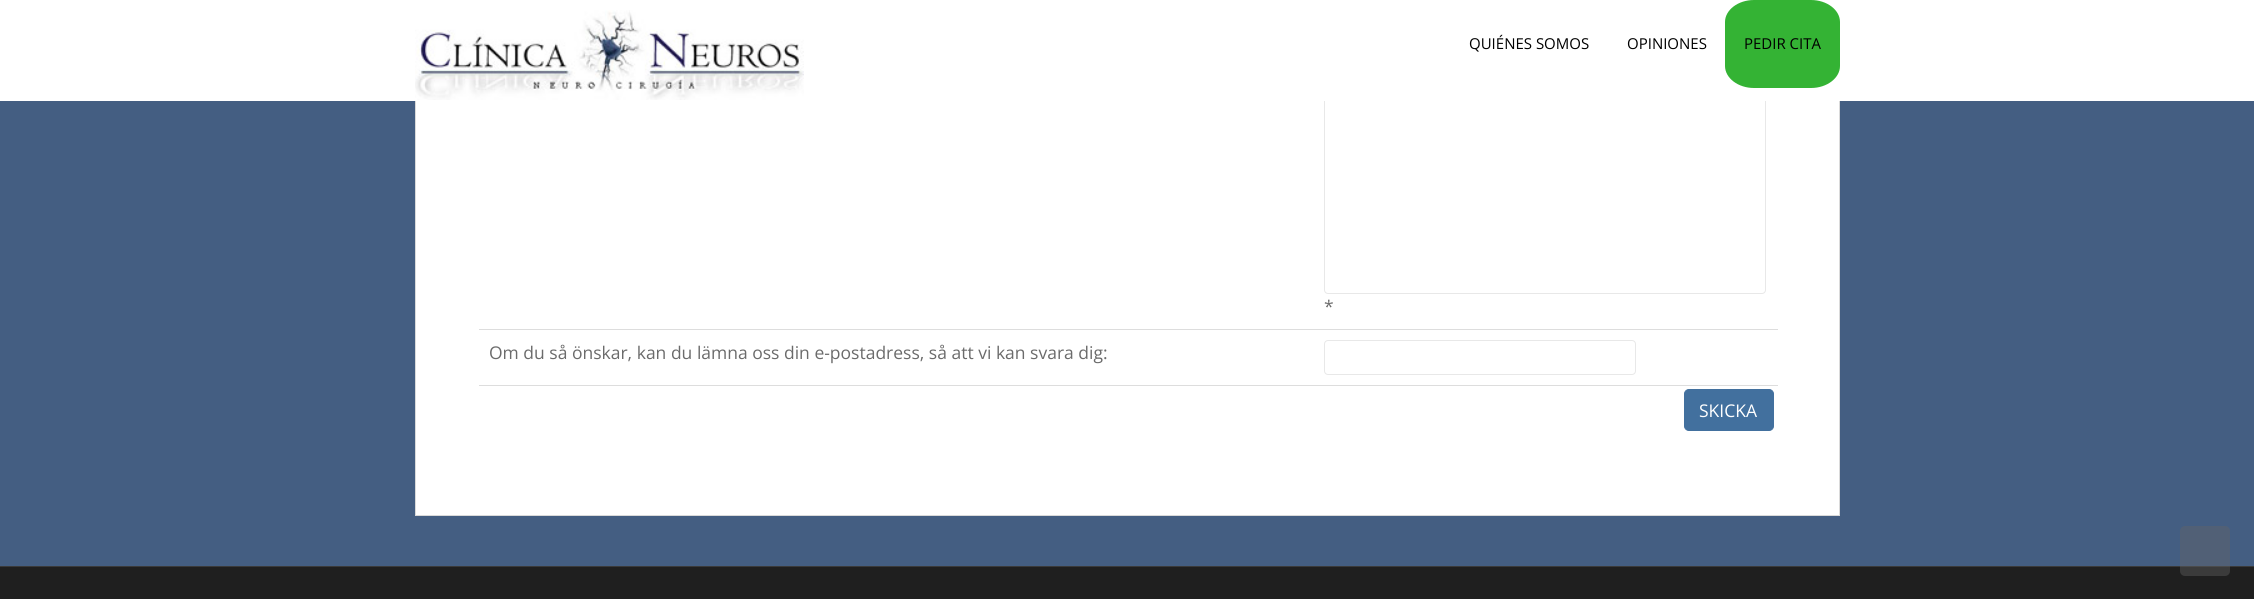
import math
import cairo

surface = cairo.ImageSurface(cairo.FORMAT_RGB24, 2254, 599)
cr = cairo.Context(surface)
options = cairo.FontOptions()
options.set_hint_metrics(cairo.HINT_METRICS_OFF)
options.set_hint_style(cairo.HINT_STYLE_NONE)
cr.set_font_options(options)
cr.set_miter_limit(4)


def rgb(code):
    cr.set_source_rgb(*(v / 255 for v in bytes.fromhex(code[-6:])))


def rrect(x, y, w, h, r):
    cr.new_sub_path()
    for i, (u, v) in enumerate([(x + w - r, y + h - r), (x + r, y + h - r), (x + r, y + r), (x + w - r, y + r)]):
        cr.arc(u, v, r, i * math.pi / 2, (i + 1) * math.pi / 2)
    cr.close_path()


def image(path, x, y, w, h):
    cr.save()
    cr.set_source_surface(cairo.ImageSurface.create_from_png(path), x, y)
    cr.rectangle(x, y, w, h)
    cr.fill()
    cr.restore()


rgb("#445e82")
cr.paint()
rgb("#ffffff")
cr.rectangle(416, 101, 1423, 414)
cr.fill()
cr.rectangle(415.5, -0.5, 1424, 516)
rgb("#dadada")
cr.set_line_width(1)
cr.stroke()
rrect(1324.5, 36.5, 441, 257, 3.5)
rgb("#e8e8e8")
cr.stroke()
rgb("#ffffff")
cr.rectangle(0, 0, 2254, 101)
cr.fill()
image("img/1.png", 415, 10, 389, 90)
rgb("#34b334")
cr.new_path()
cr.move_to(1754, 0)
cr.line_to(1811, 0)
cr.curve_to(1827, 0, 1840, 10, 1840, 22)
cr.line_to(1840, 66)
cr.curve_to(1840, 78, 1827, 88, 1811, 88)
cr.line_to(1754, 88)
cr.curve_to(1738, 88, 1725, 78, 1725, 66)
cr.line_to(1725, 22)
cr.curve_to(1725, 10, 1738, 0, 1754, 0)
cr.close_path()
cr.fill()
rgb("#dddddd")
cr.rectangle(479, 329, 1299, 1)
cr.fill()
rrect(1324.5, 340.5, 311, 34, 3.5)
rgb("#e8e8e8")
cr.stroke()
rgb("#dddddd")
cr.rectangle(479, 385, 1299, 1)
cr.fill()
rgb("#42709e")
rrect(1684.5, 389.5, 89, 41, 4.5)
cr.fill_preserve()
cr.stroke()
rgb("#1f1f1f")
cr.rectangle(0, 567, 2254, 32)
cr.fill()
rgb("#3a3a3a")
cr.rectangle(0, 566, 2254, 1)
cr.fill()
cr.set_source_rgba(0.392, 0.392, 0.392, 0.4)
rrect(2180, 526, 50, 50, 5)
cr.fill()
cr.select_font_face("Open Sans")
cr.set_font_size(15)
rgb("#000000")
for x, y, s in [
    (1469, 49, "QUIÉNES SOMOS"),
    (1627, 49, "OPINIONES"),
    (1744, 49, "PEDIR CITA"),
]:
    cr.move_to(x, y)
    cr.show_text(s)
cr.set_font_size(17.5)
rgb("#6b6b6b")
cr.move_to(1324, 313)
cr.show_text("*")
cr.move_to(489, 359)
cr.show_text("Om du så önskar, kan du lämna oss din e-postadress, så att vi kan svara dig:")
rgb("#ffffff")
cr.move_to(1699, 417)
cr.show_text("SKICKA")
surface.write_to_png("page.png")
